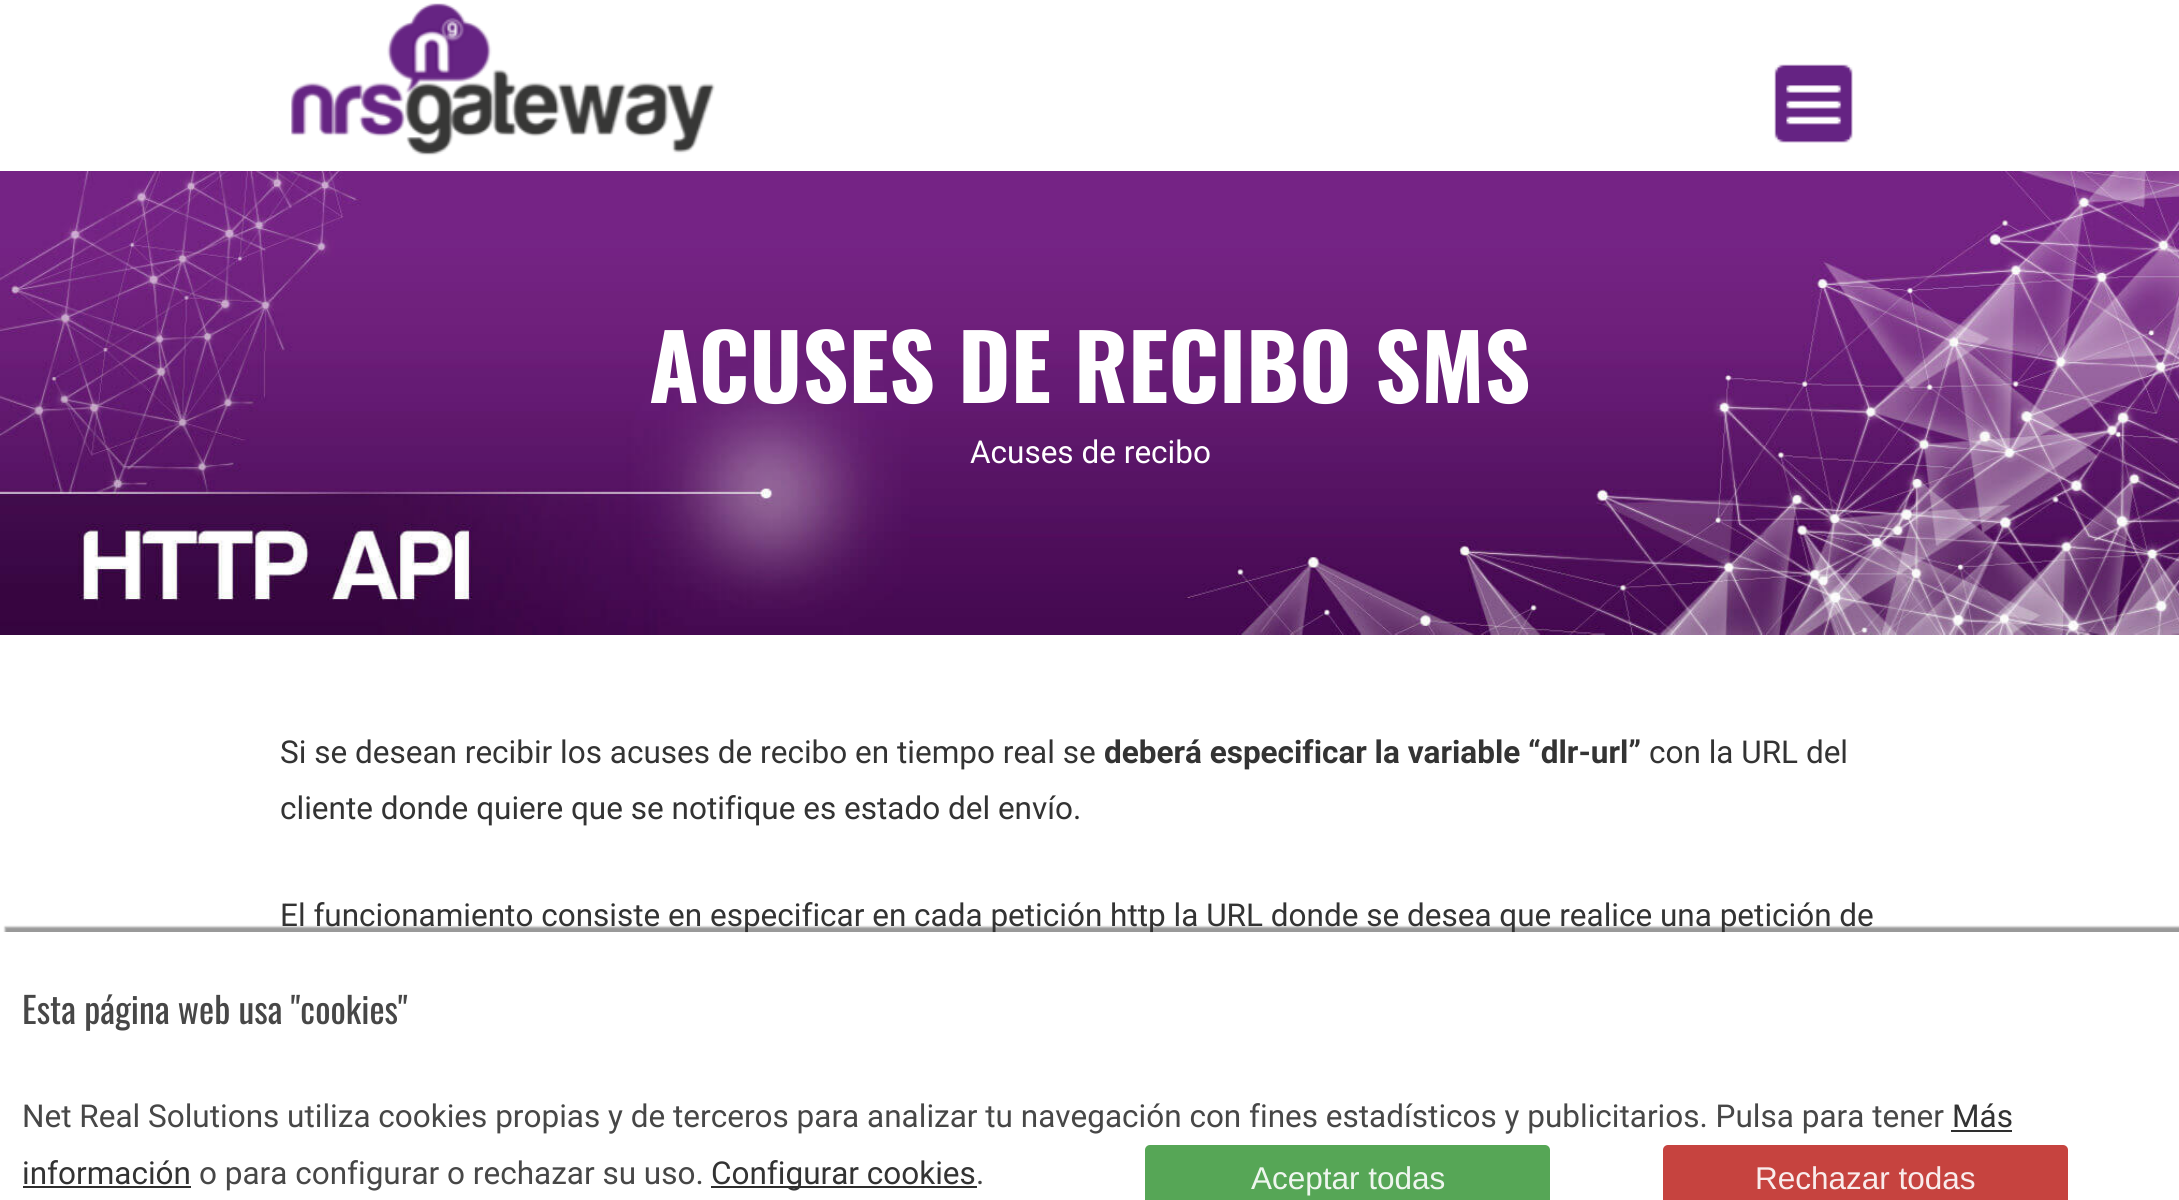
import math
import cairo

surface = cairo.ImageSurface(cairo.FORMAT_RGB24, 2179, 1200)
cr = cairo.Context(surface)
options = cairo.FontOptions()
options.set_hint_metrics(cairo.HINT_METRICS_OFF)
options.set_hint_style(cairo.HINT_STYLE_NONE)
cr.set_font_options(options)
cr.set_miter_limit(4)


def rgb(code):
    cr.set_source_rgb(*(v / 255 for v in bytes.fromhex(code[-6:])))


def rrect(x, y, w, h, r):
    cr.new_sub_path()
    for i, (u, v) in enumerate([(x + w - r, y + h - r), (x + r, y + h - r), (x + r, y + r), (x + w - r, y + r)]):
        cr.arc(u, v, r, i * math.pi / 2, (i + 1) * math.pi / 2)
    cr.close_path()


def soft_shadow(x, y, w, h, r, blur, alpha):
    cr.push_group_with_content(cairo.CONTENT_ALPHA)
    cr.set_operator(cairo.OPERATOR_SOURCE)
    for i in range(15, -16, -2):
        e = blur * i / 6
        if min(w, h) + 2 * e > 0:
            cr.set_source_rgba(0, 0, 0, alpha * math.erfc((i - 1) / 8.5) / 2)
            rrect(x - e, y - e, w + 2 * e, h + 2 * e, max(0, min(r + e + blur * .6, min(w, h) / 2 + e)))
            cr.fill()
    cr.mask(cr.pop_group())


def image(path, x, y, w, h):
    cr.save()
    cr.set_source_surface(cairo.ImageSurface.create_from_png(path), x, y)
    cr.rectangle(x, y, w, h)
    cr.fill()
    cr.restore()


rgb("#ffffff")
cr.paint()
image("img/1.png", 291, 3, 424, 153)
image("img/2.png", 1774, 64, 79, 79)
image("img/3.png", 0, 171, 2179, 464)
cr.save()
cr.rectangle(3, 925, 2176, 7)
cr.clip()
rgb("#323232")
soft_shadow(5, 927, 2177, 270, 0, 1, 0.5)
cr.restore()
rgb("#2e2e2e")
cr.rectangle(1951, 1130, 61, 2)
cr.rectangle(23, 1186, 168, 2)
cr.fill()
cr.set_source_rgba(0.09, 0.09, 0.09, 0.9)
cr.rectangle(711, 1186, 266, 2)
cr.fill()
cr.set_source_rgba(0.267, 0.616, 0.267, 0.9)
rrect(1145, 1145, 405, 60, 5)
cr.fill()
cr.set_source_rgba(0.753, 0.184, 0.169, 0.9)
rrect(1663, 1145, 405, 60, 5)
cr.fill()
cr.select_font_face("Oswald", cairo.FONT_SLANT_NORMAL, cairo.FONT_WEIGHT_BOLD)
cr.set_font_size(90)
rgb("#ffffff")
cr.move_to(649, 403)
cr.show_text("ACUSES DE RECIBO SMS")
cr.select_font_face("Roboto")
cr.set_font_size(31.5)
cr.move_to(970, 463)
cr.show_text("Acuses de recibo")
rgb("#333333")
cr.move_to(280, 763)
cr.show_text("Si se desean recibir los acuses de recibo en tiempo real se")
cr.select_font_face("Roboto", cairo.FONT_SLANT_NORMAL, cairo.FONT_WEIGHT_BOLD)
cr.move_to(1104, 763)
cr.show_text("deberá especificar la variable “dlr-url”")
cr.select_font_face("Roboto")
for x, y, s in [
    (1649, 763, "con la URL del"),
    (280, 819, "cliente donde quiere que se notifique es estado del envío."),
    (280, 926, "El funcionamiento consiste en especificar en cada petición http la URL donde se desea que realice una petición de"),
]:
    cr.move_to(x, y)
    cr.show_text(s)
cr.set_source_rgba(1, 1, 1, 0.9)
cr.rectangle(745, 932, 980, 1)
cr.fill()
cr.select_font_face("Oswald")
cr.set_font_size(36)
rgb("#474747")
cr.move_to(22, 1024)
cr.show_text("Esta página web usa \"cookies\"")
cr.select_font_face("Roboto")
cr.set_font_size(31.5)
cr.move_to(22, 1127)
cr.show_text("Net Real Solutions utiliza cookies propias y de terceros para analizar tu navegación con fines estadísticos y publicitarios. Pulsa para tener")
rgb("#333333")
cr.move_to(1952, 1127)
cr.show_text("Más")
cr.move_to(22, 1184)
cr.show_text("información")
rgb("#474747")
cr.move_to(199, 1184)
cr.show_text("o para configurar o rechazar su uso.")
rgb("#333333")
cr.move_to(711, 1184)
cr.show_text("Configurar cookies")
rgb("#474747")
cr.move_to(976, 1184)
cr.show_text(".")
cr.select_font_face("Arimo")
rgb("#eef6ee")
cr.move_to(1251, 1189)
cr.show_text("Aceptar todas")
rgb("#f9ecec")
cr.move_to(1755, 1189)
cr.show_text("Rechazar todas")
surface.write_to_png("page.png")
